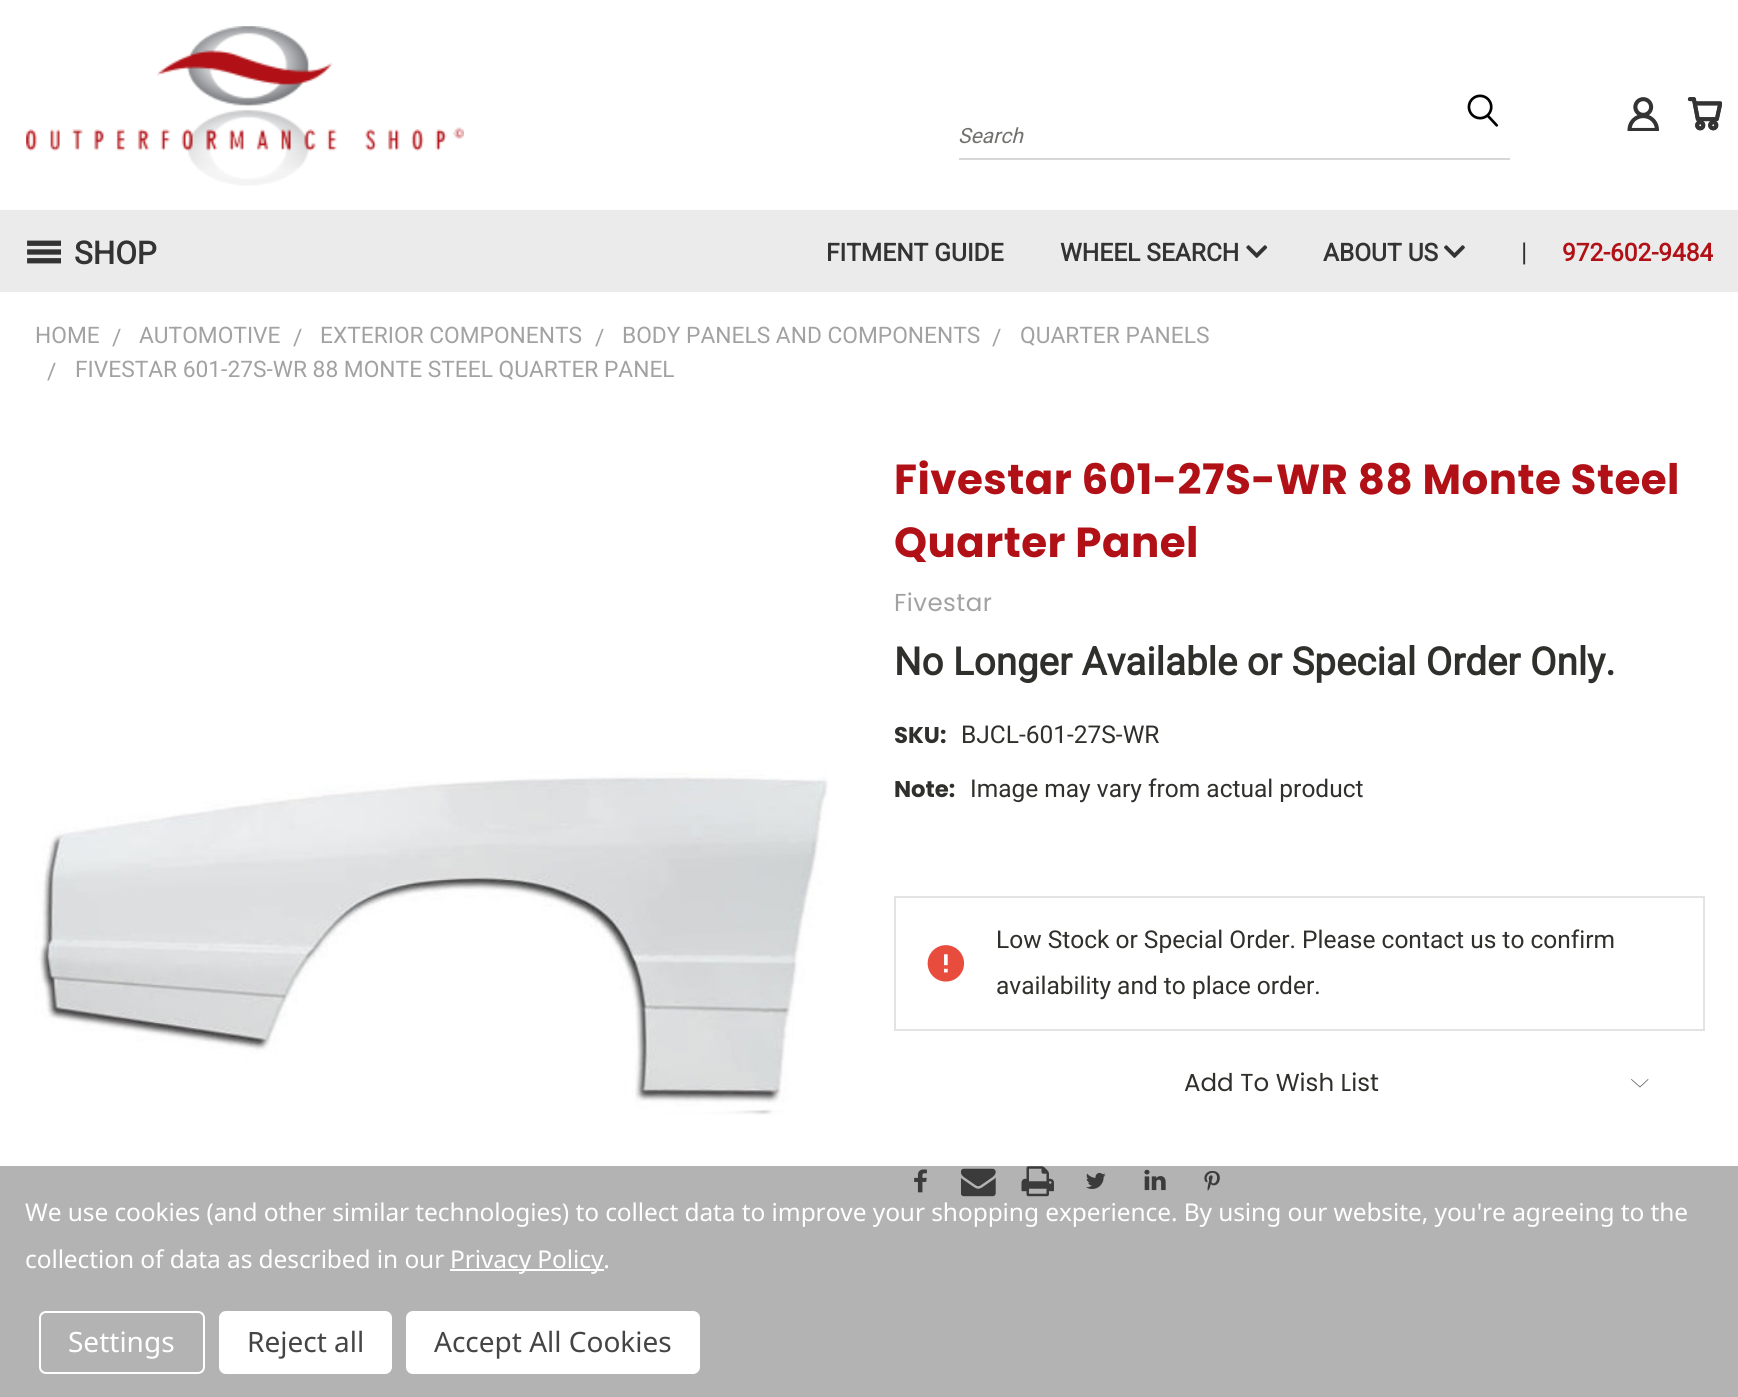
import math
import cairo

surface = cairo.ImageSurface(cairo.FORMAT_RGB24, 1738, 1397)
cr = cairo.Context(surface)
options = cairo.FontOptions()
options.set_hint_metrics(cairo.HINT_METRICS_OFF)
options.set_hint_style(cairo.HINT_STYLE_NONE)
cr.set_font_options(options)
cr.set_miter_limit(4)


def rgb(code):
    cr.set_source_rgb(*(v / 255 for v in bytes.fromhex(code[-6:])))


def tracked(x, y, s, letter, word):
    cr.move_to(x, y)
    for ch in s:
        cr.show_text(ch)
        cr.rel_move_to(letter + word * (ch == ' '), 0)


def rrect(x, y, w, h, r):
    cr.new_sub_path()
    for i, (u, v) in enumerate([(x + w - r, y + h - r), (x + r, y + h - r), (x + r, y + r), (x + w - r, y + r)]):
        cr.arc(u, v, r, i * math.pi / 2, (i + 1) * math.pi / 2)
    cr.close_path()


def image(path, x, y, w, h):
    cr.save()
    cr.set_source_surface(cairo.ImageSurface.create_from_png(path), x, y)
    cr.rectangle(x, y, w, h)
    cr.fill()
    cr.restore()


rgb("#ffffff")
cr.paint()
rgb("#b3b3b3")
cr.rectangle(0, 1166, 1738, 231)
cr.fill()
image("img/1.png", 26, 26, 438, 160)
image("img/2.png", 1627, 97, 32, 34)
image("img/3.png", 1687, 97, 35, 34)
image("img/4.png", 1467, 94, 32, 33)
rgb("#d7d7d7")
cr.rectangle(959, 158, 551, 2)
cr.fill()
rgb("#ebebeb")
cr.rectangle(0, 210, 1738, 82)
cr.fill()
image("img/5.png", 27, 240, 34, 24)
image("img/6.png", 1246, 245, 22, 13)
image("img/7.png", 1444, 245, 21, 13)
image("img/8.png", 35, 770, 793, 345)
cr.rectangle(895, 897, 809, 133)
rgb("#e4e3e1")
cr.stroke()
image("img/9.png", 927, 945, 38, 37)
rgb("#545454")
cr.set_fill_rule(cairo.FILL_RULE_EVEN_ODD)
cr.new_path()
cr.move_to(1640, 1086.5)
cr.line_to(1648, 1079)
cr.line_to(1648.5, 1079.5)
cr.line_to(1640, 1087.5)
cr.line_to(1631, 1079.5)
cr.line_to(1631.5, 1079)
cr.close_path()
cr.fill()
image("img/10.png", 914, 1169, 13, 24)
image("img/11.png", 961, 1168, 35, 29)
image("img/12.png", 1021, 1166, 33, 31)
image("img/13.png", 1086, 1172, 20, 17)
image("img/14.png", 1144, 1169, 22, 22)
image("img/15.png", 1204, 1170, 16, 21)
rgb("#ffffff")
cr.rectangle(450, 1269, 154, 2)
cr.fill()
rrect(40, 1312, 164, 61, 6)
cr.stroke()
rrect(219, 1311, 173, 63, 7)
cr.fill()
rrect(406, 1311, 294, 63, 7)
cr.fill()
cr.select_font_face("Roboto", cairo.FONT_SLANT_ITALIC)
cr.set_font_size(21)
rgb("#70706e")
cr.move_to(958, 143)
cr.show_text("Search")
cr.select_font_face("Roboto", cairo.FONT_SLANT_NORMAL, cairo.FONT_WEIGHT_BOLD)
cr.set_font_size(31.5)
rgb("#333333")
cr.move_to(74, 264)
cr.show_text("SHOP")
cr.set_font_size(24.5)
for x, y, s in [
    (826, 261, "FITMENT GUIDE"),
    (1060, 261, "WHEEL SEARCH"),
    (1323, 261, "ABOUT US"),
]:
    cr.move_to(x, y)
    cr.show_text(s)
cr.select_font_face("Roboto")
cr.set_font_size(26)
rgb("#2f2f2b")
cr.move_to(1521, 261)
cr.show_text("|")
cr.select_font_face("Roboto", cairo.FONT_SLANT_NORMAL, cairo.FONT_WEIGHT_BOLD)
cr.set_font_size(24.5)
rgb("#b11116")
cr.move_to(1562, 261)
cr.show_text("972-602-9484")
cr.select_font_face("Roboto")
cr.set_font_size(22.75)
rgb("#a2a2a2")
for x, y, s in [
    (35, 343, "HOME"),
    (112, 345, "/"),
    (139, 343, "AUTOMOTIVE"),
    (293, 345, "/"),
    (320, 343, "EXTERIOR COMPONENTS"),
    (595, 345, "/"),
    (622, 343, "BODY PANELS AND COMPONENTS"),
    (992, 345, "/"),
    (1020, 343, "QUARTER PANELS"),
    (47, 379, "/"),
    (75, 377, "FIVESTAR 601-27S-WR 88 MONTE STEEL QUARTER PANEL"),
]:
    cr.move_to(x, y)
    cr.show_text(s)
cr.select_font_face("Poppins", cairo.FONT_SLANT_NORMAL, cairo.FONT_WEIGHT_BOLD)
cr.set_font_size(42)
rgb("#b11116")
tracked(894, 494, "Fivestar 601-27S-WR 88 Monte Steel", 0.45, 0)
tracked(894, 557, "Quarter Panel", 0.45, 0)
cr.select_font_face("Poppins")
cr.set_font_size(24.5)
rgb("#a2a2a2")
tracked(894, 611, "Fivestar", 0.45, 0)
cr.select_font_face("Roboto", cairo.FONT_SLANT_NORMAL, cairo.FONT_WEIGHT_BOLD)
cr.set_font_size(38.5)
rgb("#2f2f2b")
cr.move_to(894, 675)
cr.show_text("No Longer Available or Special Order Only.")
cr.select_font_face("Poppins", cairo.FONT_SLANT_NORMAL, cairo.FONT_WEIGHT_BOLD)
cr.set_font_size(22.75)
cr.move_to(894, 743)
cr.show_text("SKU:")
cr.select_font_face("Roboto")
cr.set_font_size(24.5)
cr.move_to(961, 743)
cr.show_text("BJCL-601-27S-WR")
cr.select_font_face("Poppins", cairo.FONT_SLANT_NORMAL, cairo.FONT_WEIGHT_BOLD)
cr.set_font_size(22.75)
cr.move_to(894, 797)
cr.show_text("Note:")
cr.select_font_face("Roboto")
cr.set_font_size(24.5)
for x, y, s in [
    (970, 797, "Image may vary from actual product"),
    (996, 948, "Low Stock or Special Order. Please contact us to confirm"),
    (996, 994, "availability and to place order."),
]:
    cr.move_to(x, y)
    cr.show_text(s)
cr.select_font_face("Poppins")
cr.move_to(1184, 1091)
cr.show_text("Add To Wish List")
cr.select_font_face("Noto Sans")
rgb("#ffffff")
for x, y, s in [
    (25, 1221, "We use cookies (and other similar technologies) to collect data to improve your shopping experience. By using our website, you're agreeing to the"),
    (25, 1268, "collection of data as described in our"),
    (450, 1268, "Privacy Policy."),
]:
    tracked(x, y, s, -0.09, 0)
cr.set_font_size(28)
cr.move_to(68, 1352)
cr.show_text("Settings")
rgb("#454545")
cr.move_to(247, 1352)
cr.show_text("Reject all")
cr.move_to(434, 1352)
cr.show_text("Accept All Cookies")
surface.write_to_png("page.png")
